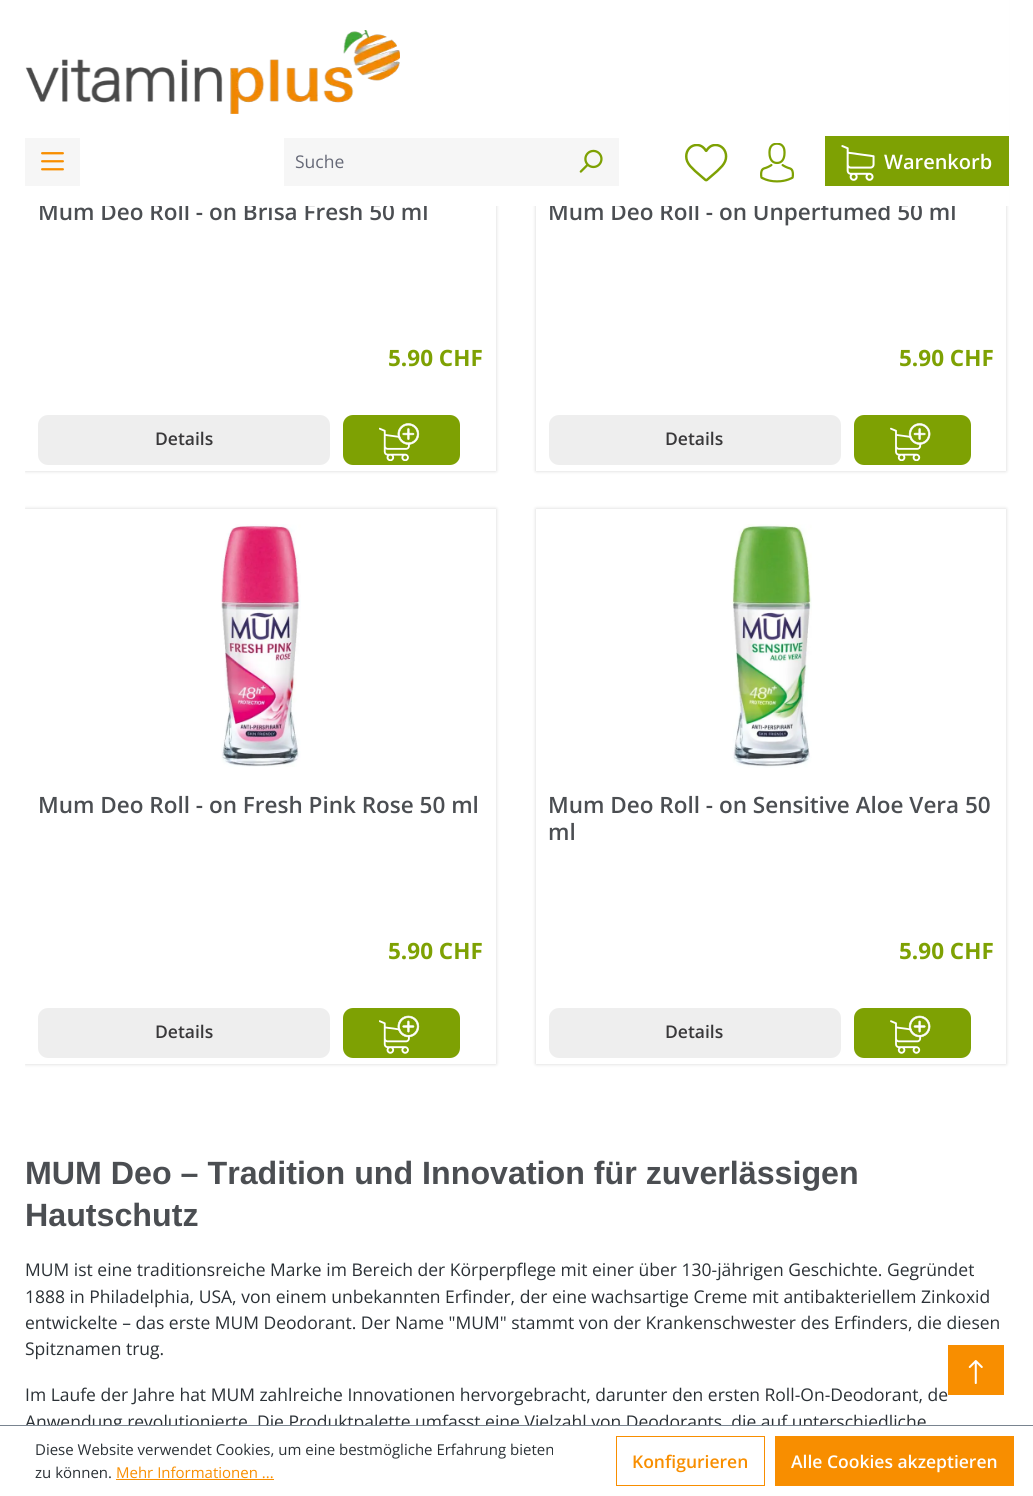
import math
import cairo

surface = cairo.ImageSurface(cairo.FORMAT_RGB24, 1033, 1496)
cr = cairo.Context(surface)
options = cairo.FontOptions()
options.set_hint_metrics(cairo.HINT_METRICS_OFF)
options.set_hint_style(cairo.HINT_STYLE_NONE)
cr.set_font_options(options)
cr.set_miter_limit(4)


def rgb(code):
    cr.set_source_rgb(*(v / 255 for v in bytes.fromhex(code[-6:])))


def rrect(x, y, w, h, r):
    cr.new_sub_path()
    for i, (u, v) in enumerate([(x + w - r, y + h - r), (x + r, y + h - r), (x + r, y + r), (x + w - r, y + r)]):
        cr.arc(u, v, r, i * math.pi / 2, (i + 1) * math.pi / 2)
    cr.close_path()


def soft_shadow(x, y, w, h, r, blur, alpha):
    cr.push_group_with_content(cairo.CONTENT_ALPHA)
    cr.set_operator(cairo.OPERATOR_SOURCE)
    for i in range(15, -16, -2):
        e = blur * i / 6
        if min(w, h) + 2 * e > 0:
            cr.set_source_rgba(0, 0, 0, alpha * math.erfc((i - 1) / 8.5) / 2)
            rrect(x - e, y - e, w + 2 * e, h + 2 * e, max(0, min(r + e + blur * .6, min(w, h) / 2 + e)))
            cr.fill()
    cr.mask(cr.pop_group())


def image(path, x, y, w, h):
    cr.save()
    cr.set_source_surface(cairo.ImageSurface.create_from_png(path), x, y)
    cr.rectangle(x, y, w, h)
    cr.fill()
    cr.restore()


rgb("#ffffff")
cr.paint()
cr.save()
cr.rectangle(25, 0, 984, 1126)
cr.clip()
cr.set_fill_rule(cairo.FILL_RULE_EVEN_ODD)
cr.new_path()
cr.move_to(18, 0)
cr.line_to(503, 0)
cr.line_to(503, 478)
cr.line_to(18, 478)
cr.close_path()
cr.move_to(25, -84)
cr.line_to(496, -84)
cr.line_to(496, 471)
cr.line_to(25, 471)
cr.close_path()
cr.clip()
rgb("#000000")
soft_shadow(25, -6, 471, 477, 0, 2, 0.16)
cr.restore()
rgb("#eeeeee")
rrect(38, 415, 292, 50, 10)
cr.fill()
rgb("#7ea103")
rrect(343, 415, 117, 50, 10)
cr.fill()
image("img/7.png", 379, 423, 41, 38)
rgb("#000000")
soft_shadow(536, -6, 470, 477, 0, 2, 0.16)
rgb("#ffffff")
cr.rectangle(536, 206, 470, 265)
cr.fill()
rgb("#eeeeee")
rrect(549, 415, 292, 50, 10)
cr.fill()
rgb("#7ea103")
rrect(854, 415, 117, 50, 10)
cr.fill()
image("img/8.png", 890, 423, 41, 38)
cr.save()
cr.rectangle(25, 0, 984, 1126)
cr.clip()
rgb("#000000")
soft_shadow(25, 509, 471, 555, 0, 2, 0.16)
cr.restore()
rgb("#ffffff")
cr.rectangle(25, 509, 471, 555)
cr.fill()
image("img/9.png", 221, 524, 80, 243)
rgb("#eeeeee")
rrect(38, 1008, 292, 50, 10)
cr.fill()
rgb("#7ea103")
rrect(343, 1008, 117, 50, 10)
cr.fill()
image("img/10.png", 379, 1015, 41, 39)
rgb("#000000")
soft_shadow(536, 509, 470, 555, 0, 2, 0.16)
rgb("#ffffff")
cr.rectangle(536, 509, 470, 555)
cr.fill()
image("img/11.png", 732, 524, 80, 244)
rgb("#eeeeee")
rrect(549, 1008, 292, 50, 10)
cr.fill()
rgb("#7ea103")
rrect(854, 1008, 117, 50, 10)
cr.fill()
image("img/12.png", 890, 1015, 41, 39)
rgb("#f88e00")
cr.rectangle(948, 1345, 56, 50)
cr.fill()
image("img/13.png", 968, 1360, 15, 24)
cr.rectangle(116, 1479, 158, 1)
cr.fill()
cr.rectangle(616.5, 1436.5, 148, 49)
cr.set_line_width(1)
cr.stroke()
cr.rectangle(775, 1436, 239, 50)
cr.fill()
cr.select_font_face("Open Sans SemiBold")
cr.set_font_size(22.5)
rgb("#4b4e52")
cr.move_to(38, 220)
cr.show_text("Mum Deo Roll - on Brisa Fresh 50 ml")
cr.select_font_face("Open Sans", cairo.FONT_SLANT_NORMAL, cairo.FONT_WEIGHT_BOLD)
rgb("#7ea103")
cr.move_to(388, 366)
cr.show_text("5.90 CHF")
cr.select_font_face("Open Sans SemiBold")
cr.set_font_size(17.5)
rgb("#39383a")
cr.move_to(155, 445)
cr.show_text("Details")
cr.set_font_size(22.5)
rgb("#4b4e52")
cr.move_to(548, 220)
cr.show_text("Mum Deo Roll - on Unperfumed 50 ml")
rgb("#ffffff")
cr.rectangle(39, 0, 970, 206)
cr.fill()
rgb("#f6f6f6")
cr.rectangle(284, 138, 335, 48)
cr.fill()
image("img/3.png", 579, 149, 24, 24)
rgb("#7ea103")
cr.rectangle(825, 136, 184, 50)
cr.fill()
image("img/6.png", 841, 145, 34, 36)
cr.set_font_size(20)
rgb("#ffffff")
cr.move_to(884, 169)
cr.show_text("Warenkorb")
image("img/5.png", 760, 143, 34, 40)
image("img/4.png", 685, 144, 43, 38)
cr.select_font_face("Open Sans")
cr.set_font_size(17.5)
rgb("#666977")
cr.move_to(295, 168)
cr.show_text("Suche")
rgb("#f6f6f6")
cr.rectangle(25, 138, 55, 48)
cr.fill()
image("img/2.png", 41, 152, 23, 19)
image("img/1.png", 25, 30, 375, 84)
cr.select_font_face("Open Sans", cairo.FONT_SLANT_NORMAL, cairo.FONT_WEIGHT_BOLD)
cr.set_font_size(22.5)
rgb("#7ea103")
cr.move_to(899, 366)
cr.show_text("5.90 CHF")
cr.select_font_face("Open Sans SemiBold")
cr.set_font_size(17.5)
rgb("#39383a")
cr.move_to(665, 445)
cr.show_text("Details")
cr.set_font_size(22.5)
rgb("#4b4e52")
cr.move_to(38, 813)
cr.show_text("Mum Deo Roll - on Fresh Pink Rose 50 ml")
cr.select_font_face("Open Sans", cairo.FONT_SLANT_NORMAL, cairo.FONT_WEIGHT_BOLD)
rgb("#7ea103")
cr.move_to(388, 959)
cr.show_text("5.90 CHF")
cr.select_font_face("Open Sans SemiBold")
cr.set_font_size(17.5)
rgb("#39383a")
cr.move_to(155, 1038)
cr.show_text("Details")
cr.set_font_size(22.5)
rgb("#4b4e52")
cr.move_to(548, 813)
cr.show_text("Mum Deo Roll - on Sensitive Aloe Vera 50")
cr.move_to(548, 840)
cr.show_text("ml")
cr.select_font_face("Open Sans", cairo.FONT_SLANT_NORMAL, cairo.FONT_WEIGHT_BOLD)
rgb("#7ea103")
cr.move_to(899, 959)
cr.show_text("5.90 CHF")
cr.select_font_face("Open Sans SemiBold")
cr.set_font_size(17.5)
rgb("#39383a")
cr.move_to(665, 1038)
cr.show_text("Details")
cr.select_font_face("Liberation Sans", cairo.FONT_SLANT_NORMAL, cairo.FONT_WEIGHT_BOLD)
cr.set_font_size(32.2)
rgb("#4b4e52")
cr.move_to(25, 1184)
cr.show_text("MUM Deo – Tradition und Innovation für zuverlässigen")
cr.move_to(25, 1226)
cr.show_text("Hautschutz")
cr.select_font_face("Open Sans")
cr.set_font_size(17.5)
rgb("#2b3136")
for x, y, s in [
    (25, 1276, "MUM ist eine traditionsreiche Marke im Bereich der Körperpflege mit einer über 130-jährigen Geschichte. Gegründet"),
    (25, 1303, "1888 in Philadelphia, USA, von einem unbekannten Erfinder, der eine wachsartige Creme mit antibakteriellem Zinkoxid"),
    (25, 1329, "entwickelte – das erste MUM Deodorant. Der Name \"MUM\" stammt von der Krankenschwester des Erfinders, die diesen"),
    (25, 1355, "Spitznamen trug."),
    (25, 1401, "Im Laufe der Jahre hat MUM zahlreiche Innovationen hervorgebracht, darunter den ersten Roll-On-Deodorant, de"),
    (25, 1428, "Anwendung revolutionierte"),
    (257, 1428, "Die Produktpalette umfasst eine Vielzahl von Deodorants, die auf unterschiedliche"),
]:
    cr.move_to(x, y)
    cr.show_text(s)
rgb("#ffffff")
cr.rectangle(25, 1426, 901, 7)
cr.fill()
rgb("#798490")
cr.rectangle(0, 1425, 1033, 1)
cr.fill()
cr.set_font_size(15)
rgb("#2b3136")
cr.move_to(35, 1455)
cr.show_text("Diese Website verwendet Cookies, um eine bestmögliche Erfahrung bieten")
cr.move_to(35, 1478)
cr.show_text("zu können.")
rgb("#f88e00")
cr.move_to(116, 1478)
cr.show_text("Mehr Informationen ...")
cr.select_font_face("Open Sans SemiBold")
cr.set_font_size(17.5)
cr.move_to(632, 1468)
cr.show_text("Konfigurieren")
rgb("#ffffff")
cr.move_to(791, 1468)
cr.show_text("Alle Cookies akzeptieren")
surface.write_to_png("page.png")
